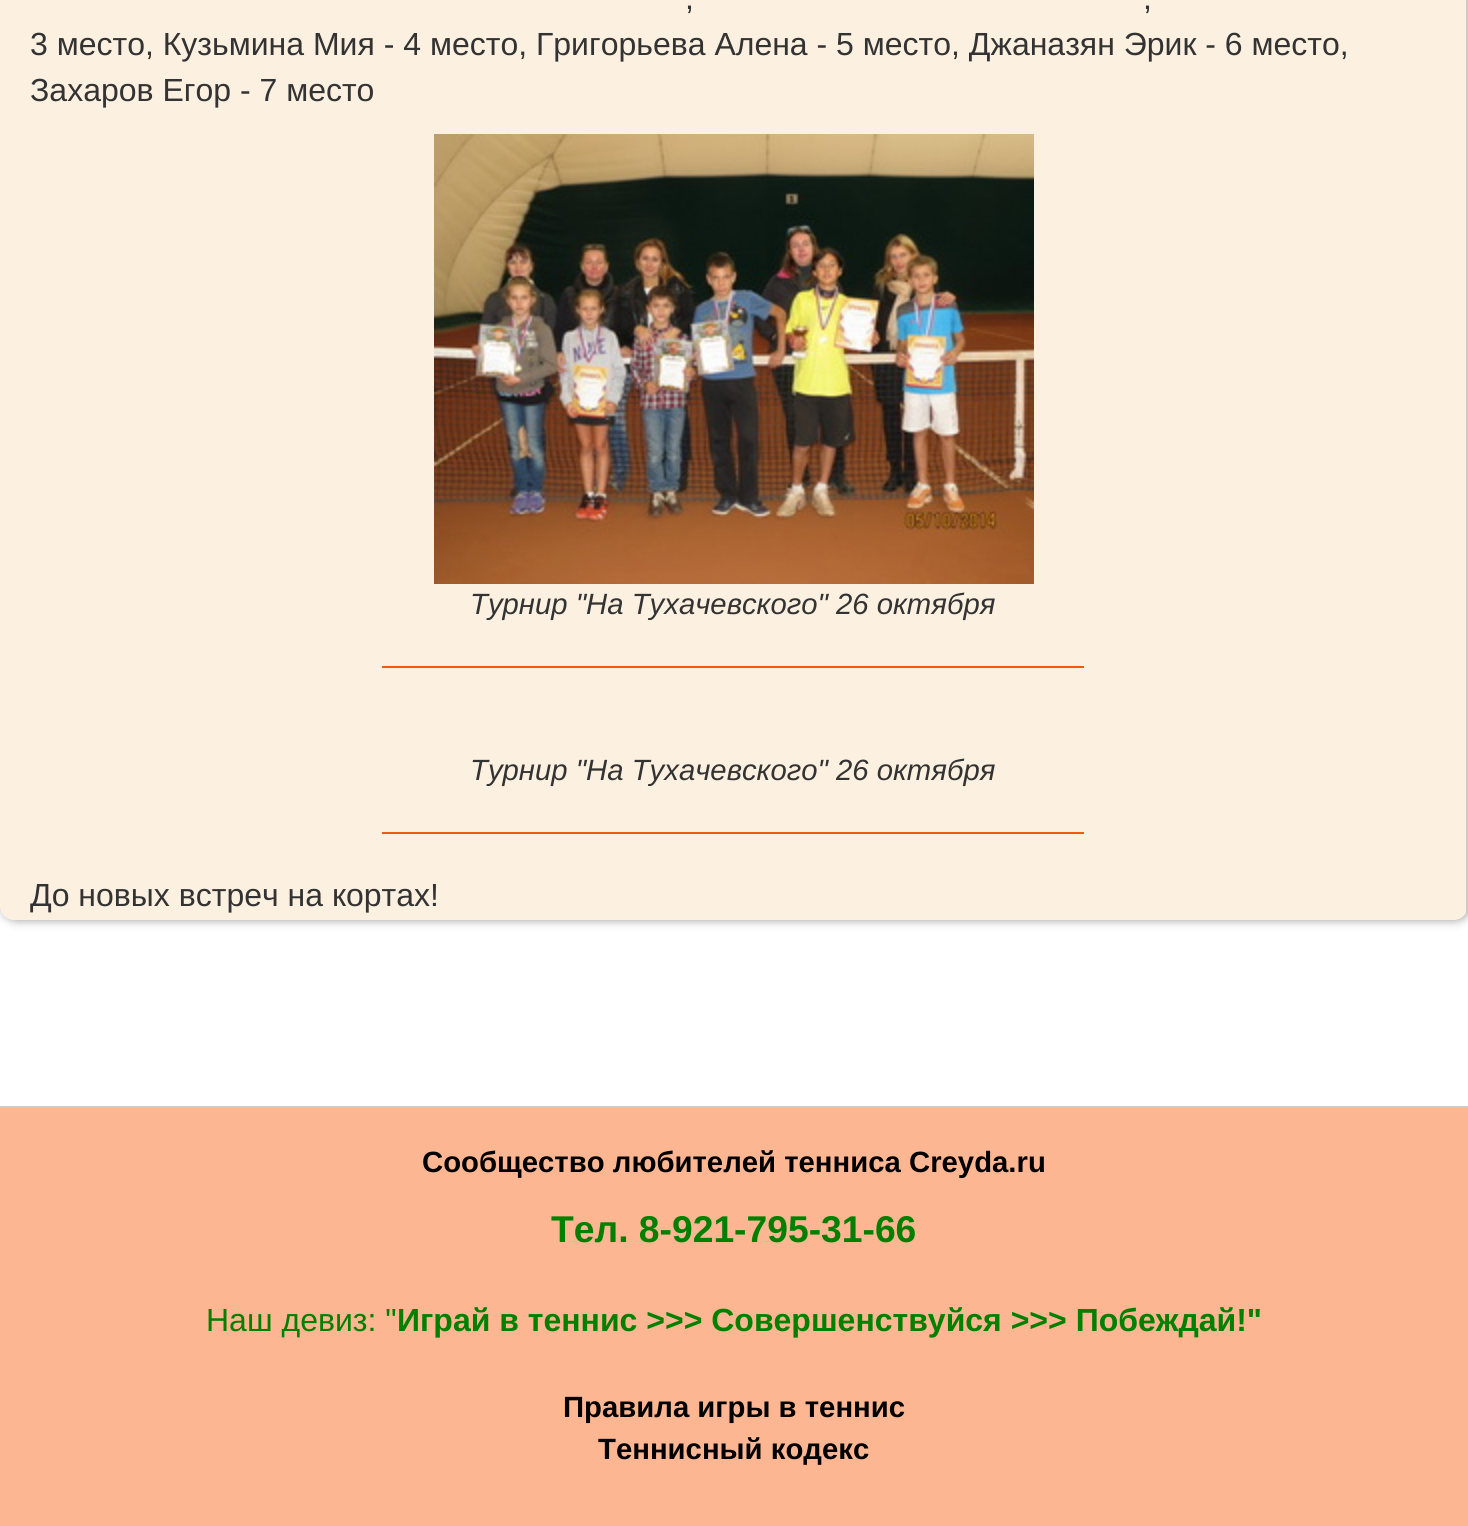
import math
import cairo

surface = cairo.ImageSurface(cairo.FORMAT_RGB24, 1468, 1526)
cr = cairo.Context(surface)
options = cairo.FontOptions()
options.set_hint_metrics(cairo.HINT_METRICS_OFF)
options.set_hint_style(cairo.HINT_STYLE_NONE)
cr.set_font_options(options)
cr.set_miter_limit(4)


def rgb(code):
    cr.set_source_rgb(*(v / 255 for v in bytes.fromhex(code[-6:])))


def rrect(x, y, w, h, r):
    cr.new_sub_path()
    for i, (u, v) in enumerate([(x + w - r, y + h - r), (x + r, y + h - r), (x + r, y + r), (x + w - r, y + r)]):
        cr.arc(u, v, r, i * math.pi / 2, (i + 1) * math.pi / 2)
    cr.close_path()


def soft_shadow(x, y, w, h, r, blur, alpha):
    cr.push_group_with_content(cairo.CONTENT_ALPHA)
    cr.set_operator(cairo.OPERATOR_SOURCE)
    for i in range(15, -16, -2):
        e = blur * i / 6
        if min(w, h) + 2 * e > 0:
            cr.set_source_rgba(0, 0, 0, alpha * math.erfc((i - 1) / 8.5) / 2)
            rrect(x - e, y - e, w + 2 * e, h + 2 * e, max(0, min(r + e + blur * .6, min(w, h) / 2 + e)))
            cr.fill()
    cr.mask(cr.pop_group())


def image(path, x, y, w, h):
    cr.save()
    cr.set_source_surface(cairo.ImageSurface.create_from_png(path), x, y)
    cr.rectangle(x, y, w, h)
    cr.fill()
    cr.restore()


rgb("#ffffff")
cr.paint()
rgb("#999999")
soft_shadow(2, -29, 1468, 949, 14, 5, 1)
rgb("#fcf0e0")
cr.new_path()
cr.move_to(0, -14)
cr.line_to(1468, -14)
cr.line_to(1468, 906)
cr.curve_to(1468, 913.5, 1461.5, 920, 1454, 920)
cr.line_to(14, 920)
cr.curve_to(6.5, 920, 0, 913.5, 0, 906)
cr.close_path()
cr.fill()
rgb("#cccccc")
cr.rectangle(1466, 0, 2, 914)
cr.fill()
image("img/1.png", 434, 134, 600, 450)
for x, y, w, h, color in [
    (382, 666, 702, 2, "#ef5a10"),
    (382, 832, 702, 2, "#ef5a10"),
    (0, 1108, 1468, 418, "#fcb692"),
    (0, 1106, 1468, 2, "#cccccc"),
]:
    rgb(color)
    cr.rectangle(x, y, w, h)
    cr.fill()
cr.select_font_face("Liberation Sans")
cr.set_font_size(32)
rgb("#333333")
for x, y, s in [
    (685, 9, ","),
    (1143, 9, ","),
    (30, 55, "3 место, Кузьмина Мия - 4 место, Григорьева Алена - 5 место, Джаназян Эрик - 6 место,"),
    (30, 101, "Захаров Егор - 7 место"),
]:
    cr.move_to(x, y)
    cr.show_text(s)
cr.select_font_face("Liberation Sans", cairo.FONT_SLANT_ITALIC)
cr.set_font_size(29.3)
cr.move_to(470, 614)
cr.show_text("Турнир \"На Тухачевского\" 26 октября")
cr.move_to(470, 780)
cr.show_text("Турнир \"На Тухачевского\" 26 октября")
cr.select_font_face("Liberation Sans")
cr.set_font_size(32)
cr.move_to(30, 906)
cr.show_text("До новых встреч на кортах!")
cr.select_font_face("Liberation Sans", cairo.FONT_SLANT_NORMAL, cairo.FONT_WEIGHT_BOLD)
cr.set_font_size(29.3)
rgb("#000000")
cr.move_to(422, 1172)
cr.show_text("Сообщество любителей тенниса Creyda.ru")
cr.set_font_size(37.25)
rgb("#008000")
cr.move_to(551, 1242)
cr.show_text("Тел. 8-921-795-31-66")
cr.select_font_face("Liberation Sans")
cr.set_font_size(32)
cr.move_to(206, 1331)
cr.show_text("Наш девиз: \"")
cr.select_font_face("Liberation Sans", cairo.FONT_SLANT_NORMAL, cairo.FONT_WEIGHT_BOLD)
cr.move_to(397, 1331)
cr.show_text("Играй в теннис >>> Совершенствуйся >>> Побеждай!\"")
cr.set_font_size(29.3)
rgb("#000000")
cr.move_to(563, 1417)
cr.show_text("Правила игры в теннис")
cr.move_to(598, 1459)
cr.show_text("Теннисный кодекс")
surface.write_to_png("page.png")
